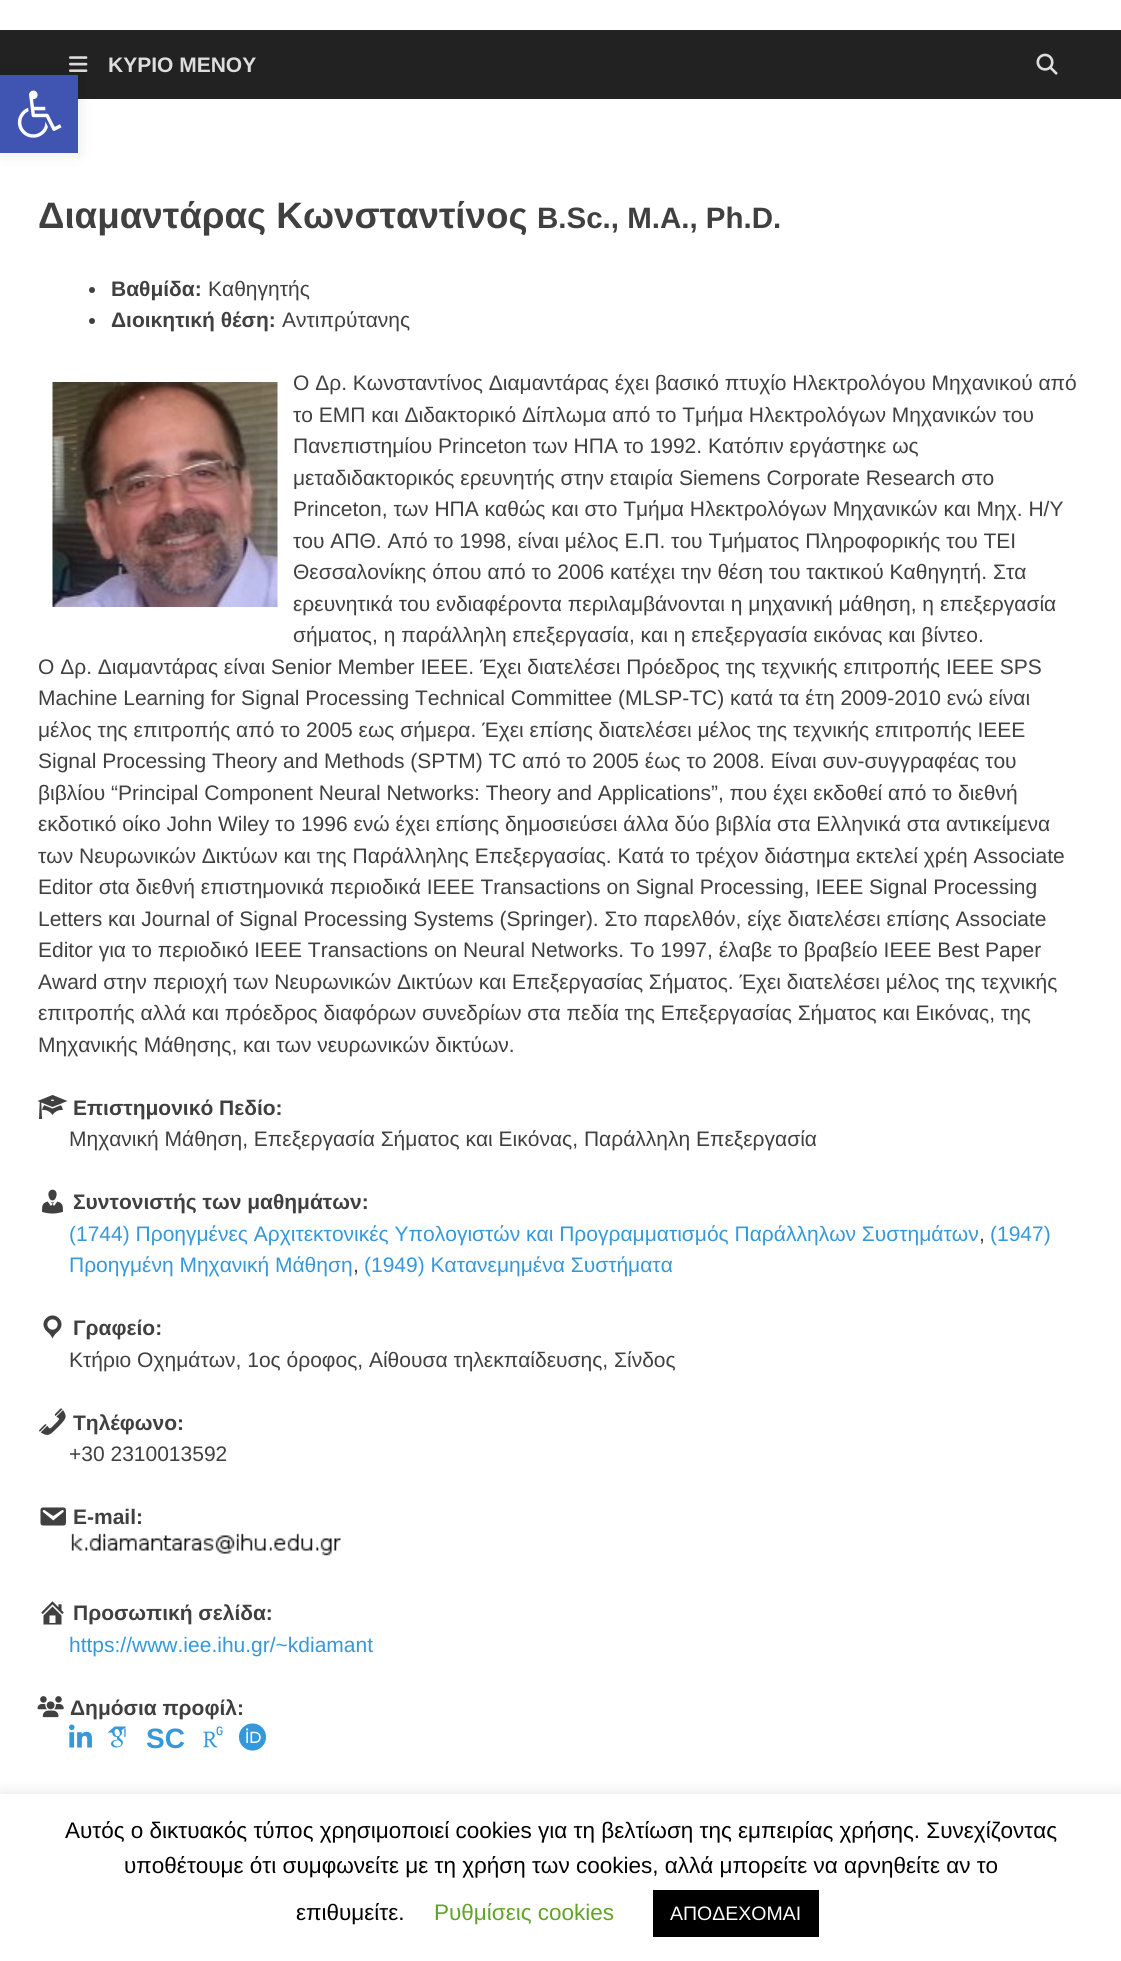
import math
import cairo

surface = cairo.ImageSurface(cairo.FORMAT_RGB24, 1121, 1961)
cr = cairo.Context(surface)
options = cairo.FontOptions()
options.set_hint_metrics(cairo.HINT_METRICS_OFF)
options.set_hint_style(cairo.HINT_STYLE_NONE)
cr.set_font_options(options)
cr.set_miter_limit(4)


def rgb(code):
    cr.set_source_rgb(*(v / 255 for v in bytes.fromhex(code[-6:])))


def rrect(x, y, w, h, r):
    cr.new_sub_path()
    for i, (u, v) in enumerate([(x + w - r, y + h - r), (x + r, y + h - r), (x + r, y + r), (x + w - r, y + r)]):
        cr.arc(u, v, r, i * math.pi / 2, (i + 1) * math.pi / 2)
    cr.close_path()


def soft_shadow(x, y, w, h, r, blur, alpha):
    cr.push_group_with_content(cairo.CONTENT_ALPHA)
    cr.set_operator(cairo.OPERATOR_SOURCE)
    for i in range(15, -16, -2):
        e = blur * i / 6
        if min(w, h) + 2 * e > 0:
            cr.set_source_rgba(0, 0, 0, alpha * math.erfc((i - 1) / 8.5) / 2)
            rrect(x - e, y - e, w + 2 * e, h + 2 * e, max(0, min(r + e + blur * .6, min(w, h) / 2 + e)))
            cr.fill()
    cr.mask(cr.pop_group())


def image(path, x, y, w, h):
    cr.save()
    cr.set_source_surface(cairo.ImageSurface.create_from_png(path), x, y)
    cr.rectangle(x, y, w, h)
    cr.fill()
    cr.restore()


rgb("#ffffff")
cr.paint()
rgb("#222222")
cr.rectangle(0, 30, 1121, 69)
cr.fill()
image("img/2.png", 69, 56, 19, 16)
rgb("#000000")
soft_shadow(0, 75, 78, 78, 0, 7.5, 0.1)
rgb("#4054b2")
cr.rectangle(0, 75, 78, 78)
cr.fill()
image("img/1.png", 17, 90, 45, 48)
image("img/3.png", 1036, 53, 22, 22)
rgb("#404040")
cr.arc(92, 290, 3, 0, 2 * math.pi)
cr.fill()
cr.arc(92, 321, 3, 0, 2 * math.pi)
cr.fill()
image("img/4.png", 52, 382, 226, 225)
image("img/5.png", 37, 1095, 31, 24)
image("img/6.png", 42, 1189, 21, 25)
image("img/7.png", 43, 1315, 19, 24)
image("img/8.png", 39, 1408, 27, 27)
image("img/9.png", 40, 1507, 26, 19)
image("img/10.png", 71, 1533, 270, 23)
image("img/11.png", 41, 1601, 23, 24)
image("img/12.png", 37, 1696, 27, 22)
image("img/13.png", 69, 1724, 23, 24)
image("img/14.png", 107, 1726, 20, 22)
image("img/15.png", 203, 1726, 20, 22)
image("img/16.png", 238, 1723, 28, 28)
rgb("#acabab")
soft_shadow(0, 1793, 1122, 168, 0, 7.5, 0.3)
rgb("#ffffff")
cr.rectangle(0, 1794, 1121, 167)
cr.fill()
rgb("#000000")
cr.rectangle(653, 1890, 166, 47)
cr.fill()
cr.select_font_face("Liberation Sans", cairo.FONT_SLANT_NORMAL, cairo.FONT_WEIGHT_BOLD)
cr.set_font_size(21)
rgb("#dddddd")
cr.move_to(108, 72)
cr.show_text("ΚΥΡΙΟ ΜΕΝΟΥ")
cr.set_font_size(36.75)
rgb("#404040")
cr.move_to(38, 228)
cr.show_text("Διαμαντάρας Κωνσταντίνος")
cr.set_font_size(29.5)
cr.move_to(537, 228)
cr.show_text("B.Sc., M.A., Ph.D.")
cr.set_font_size(21)
cr.move_to(111, 296)
cr.show_text("Βαθμίδα:")
cr.select_font_face("Liberation Sans")
cr.move_to(208, 296)
cr.show_text("Καθηγητής")
cr.select_font_face("Liberation Sans", cairo.FONT_SLANT_NORMAL, cairo.FONT_WEIGHT_BOLD)
cr.move_to(111, 327)
cr.show_text("Διοικητική θέση:")
cr.select_font_face("Liberation Sans")
for x, y, s in [
    (282, 327, "Αντιπρύτανης"),
    (293, 390, "Ο Δρ. Κωνσταντίνος Διαμαντάρας έχει βασικό πτυχίο Ηλεκτρολόγου Μηχανικού από"),
    (293, 422, "το ΕΜΠ και Διδακτορικό Δίπλωμα από το Τμήμα Ηλεκτρολόγων Μηχανικών του"),
    (293, 453, "Πανεπιστημίου Princeton των ΗΠΑ το 1992. Κατόπιν εργάστηκε ως"),
    (293, 485, "μεταδιδακτορικός ερευνητής στην εταιρία Siemens Corporate Research στο"),
    (293, 516, "Princeton, των ΗΠΑ καθώς και στο Τμήμα Ηλεκτρολόγων Μηχανικών και Μηχ. Η/Υ"),
    (293, 548, "του ΑΠΘ. Από το 1998, είναι μέλος Ε.Π. του Τμήματος Πληροφορικής του ΤΕΙ"),
    (293, 579, "Θεσσαλονίκης όπου από το 2006 κατέχει την θέση του τακτικού Καθηγητή. Στα"),
    (293, 611, "ερευνητικά του ενδιαφέροντα περιλαμβάνονται η μηχανική μάθηση, η επεξεργασία"),
    (293, 642, "σήματος, η παράλληλη επεξεργασία, και η επεξεργασία εικόνας και βίντεο."),
    (38, 674, "Ο Δρ. Διαμαντάρας είναι Senior Member IEEE. Έχει διατελέσει Πρόεδρος της τεχνικής επιτροπής IEEE SPS"),
    (38, 705, "Machine Learning for Signal Processing Technical Committee (MLSP-TC) κατά τα έτη 2009-2010 ενώ είναι"),
    (38, 737, "μέλος της επιτροπής από το 2005 εως σήμερα. Έχει επίσης διατελέσει μέλος της τεχνικής επιτροπής IEEE"),
    (38, 768, "Signal Processing Theory and Methods (SPTM) TC από το 2005 έως το 2008. Είναι συν-συγγραφέας του"),
    (38, 800, "βιβλίου “Principal Component Neural Networks: Theory and Applications”, που έχει εκδοθεί από το διεθνή"),
    (38, 831, "εκδοτικό οίκο John Wiley το 1996 ενώ έχει επίσης δημοσιεύσει άλλα δύο βιβλία στα Ελληνικά στα αντικείμενα"),
    (38, 863, "των Νευρωνικών Δικτύων και της Παράλληλης Επεξεργασίας. Κατά το τρέχον διάστημα εκτελεί χρέη Associate"),
    (38, 894, "Editor σtα διεθνή επιστημονικά περιοδικά IEEE Transactions on Signal Processing, IEEE Signal Processing"),
    (38, 926, "Letters και Journal of Signal Processing Systems (Springer). Στο παρελθόν, είχε διατελέσει επίσης Associate"),
    (38, 957, "Editor για το περιοδικό IEEE Transactions on Neural Networks. Το 1997, έλαβε το βραβείο IEEE Best Paper"),
    (38, 989, "Award στην περιοχή των Νευρωνικών Δικτύων και Επεξεργασίας Σήματος. Έχει διατελέσει μέλος της τεχνικής"),
    (38, 1020, "επιτροπής αλλά και πρόεδρος διαφόρων συνεδρίων στα πεδία της Επεξεργασίας Σήματος και Εικόνας, της"),
    (38, 1052, "Μηχανικής Μάθησης, και των νευρωνικών δικτύων."),
]:
    cr.move_to(x, y)
    cr.show_text(s)
cr.select_font_face("Liberation Sans", cairo.FONT_SLANT_NORMAL, cairo.FONT_WEIGHT_BOLD)
cr.move_to(73, 1115)
cr.show_text("Επιστημονικό Πεδίο:")
cr.select_font_face("Liberation Sans")
cr.move_to(69, 1146)
cr.show_text("Μηχανική Μάθηση, Επεξεργασία Σήματος και Εικόνας, Παράλληλη Επεξεργασία")
cr.select_font_face("Liberation Sans", cairo.FONT_SLANT_NORMAL, cairo.FONT_WEIGHT_BOLD)
cr.move_to(73, 1209)
cr.show_text("Συντονιστής των μαθημάτων:")
cr.select_font_face("Liberation Sans")
rgb("#3498db")
cr.move_to(69, 1241)
cr.show_text("(1744) Προηγμένες Αρχιτεκτονικές Υπολογιστών και Προγραμματισμός Παράλληλων Συστημάτων")
rgb("#404040")
cr.move_to(979, 1241)
cr.show_text(",")
rgb("#3498db")
cr.move_to(990, 1241)
cr.show_text("(1947)")
cr.move_to(69, 1272)
cr.show_text("Προηγμένη Μηχανική Μάθηση")
rgb("#404040")
cr.move_to(353, 1272)
cr.show_text(",")
rgb("#3498db")
cr.move_to(364, 1272)
cr.show_text("(1949) Κατανεμημένα Συστήματα")
cr.select_font_face("Liberation Sans", cairo.FONT_SLANT_NORMAL, cairo.FONT_WEIGHT_BOLD)
rgb("#404040")
cr.move_to(73, 1335)
cr.show_text("Γραφείο:")
cr.select_font_face("Liberation Sans")
cr.move_to(69, 1367)
cr.show_text("Κτήριο Οχημάτων, 1ος όροφος, Αίθουσα τηλεκπαίδευσης, Σίνδος")
cr.select_font_face("Liberation Sans", cairo.FONT_SLANT_NORMAL, cairo.FONT_WEIGHT_BOLD)
cr.move_to(73, 1430)
cr.show_text("Τηλέφωνο:")
cr.select_font_face("Liberation Sans")
cr.move_to(69, 1461)
cr.show_text("+30 2310013592")
cr.select_font_face("Liberation Sans", cairo.FONT_SLANT_NORMAL, cairo.FONT_WEIGHT_BOLD)
cr.move_to(73, 1524)
cr.show_text("E-mail:")
cr.move_to(73, 1620)
cr.show_text("Προσωπική σελίδα:")
cr.select_font_face("Liberation Sans")
rgb("#3498db")
cr.move_to(69, 1652)
cr.show_text("https://www.iee.ihu.gr/~kdiamant")
cr.select_font_face("Liberation Sans", cairo.FONT_SLANT_NORMAL, cairo.FONT_WEIGHT_BOLD)
rgb("#404040")
cr.move_to(70, 1715)
cr.show_text("Δημόσια προφίλ:")
cr.set_font_size(28)
rgb("#3498db")
cr.move_to(146, 1748)
cr.show_text("SC")
cr.select_font_face("Liberation Sans")
cr.set_font_size(22.5)
rgb("#000000")
for x, y, s in [
    (65, 1838, "Αυτός ο δικτυακός τύπος χρησιμοποιεί cookies για τη βελτίωση της εμπειρίας χρήσης. Συνεχίζοντας"),
    (124, 1873, "υποθέτουμε ότι συμφωνείτε με τη χρήση των cookies, αλλά μπορείτε να αρνηθείτε αν το"),
    (296, 1920, "επιθυμείτε."),
]:
    cr.move_to(x, y)
    cr.show_text(s)
rgb("#62a329")
cr.move_to(434, 1920)
cr.show_text("Ρυθμίσεις cookies")
cr.set_font_size(19.5)
rgb("#ffffff")
cr.move_to(670, 1920)
cr.show_text("ΑΠΟΔΕΧΟΜΑΙ")
surface.write_to_png("page.png")
